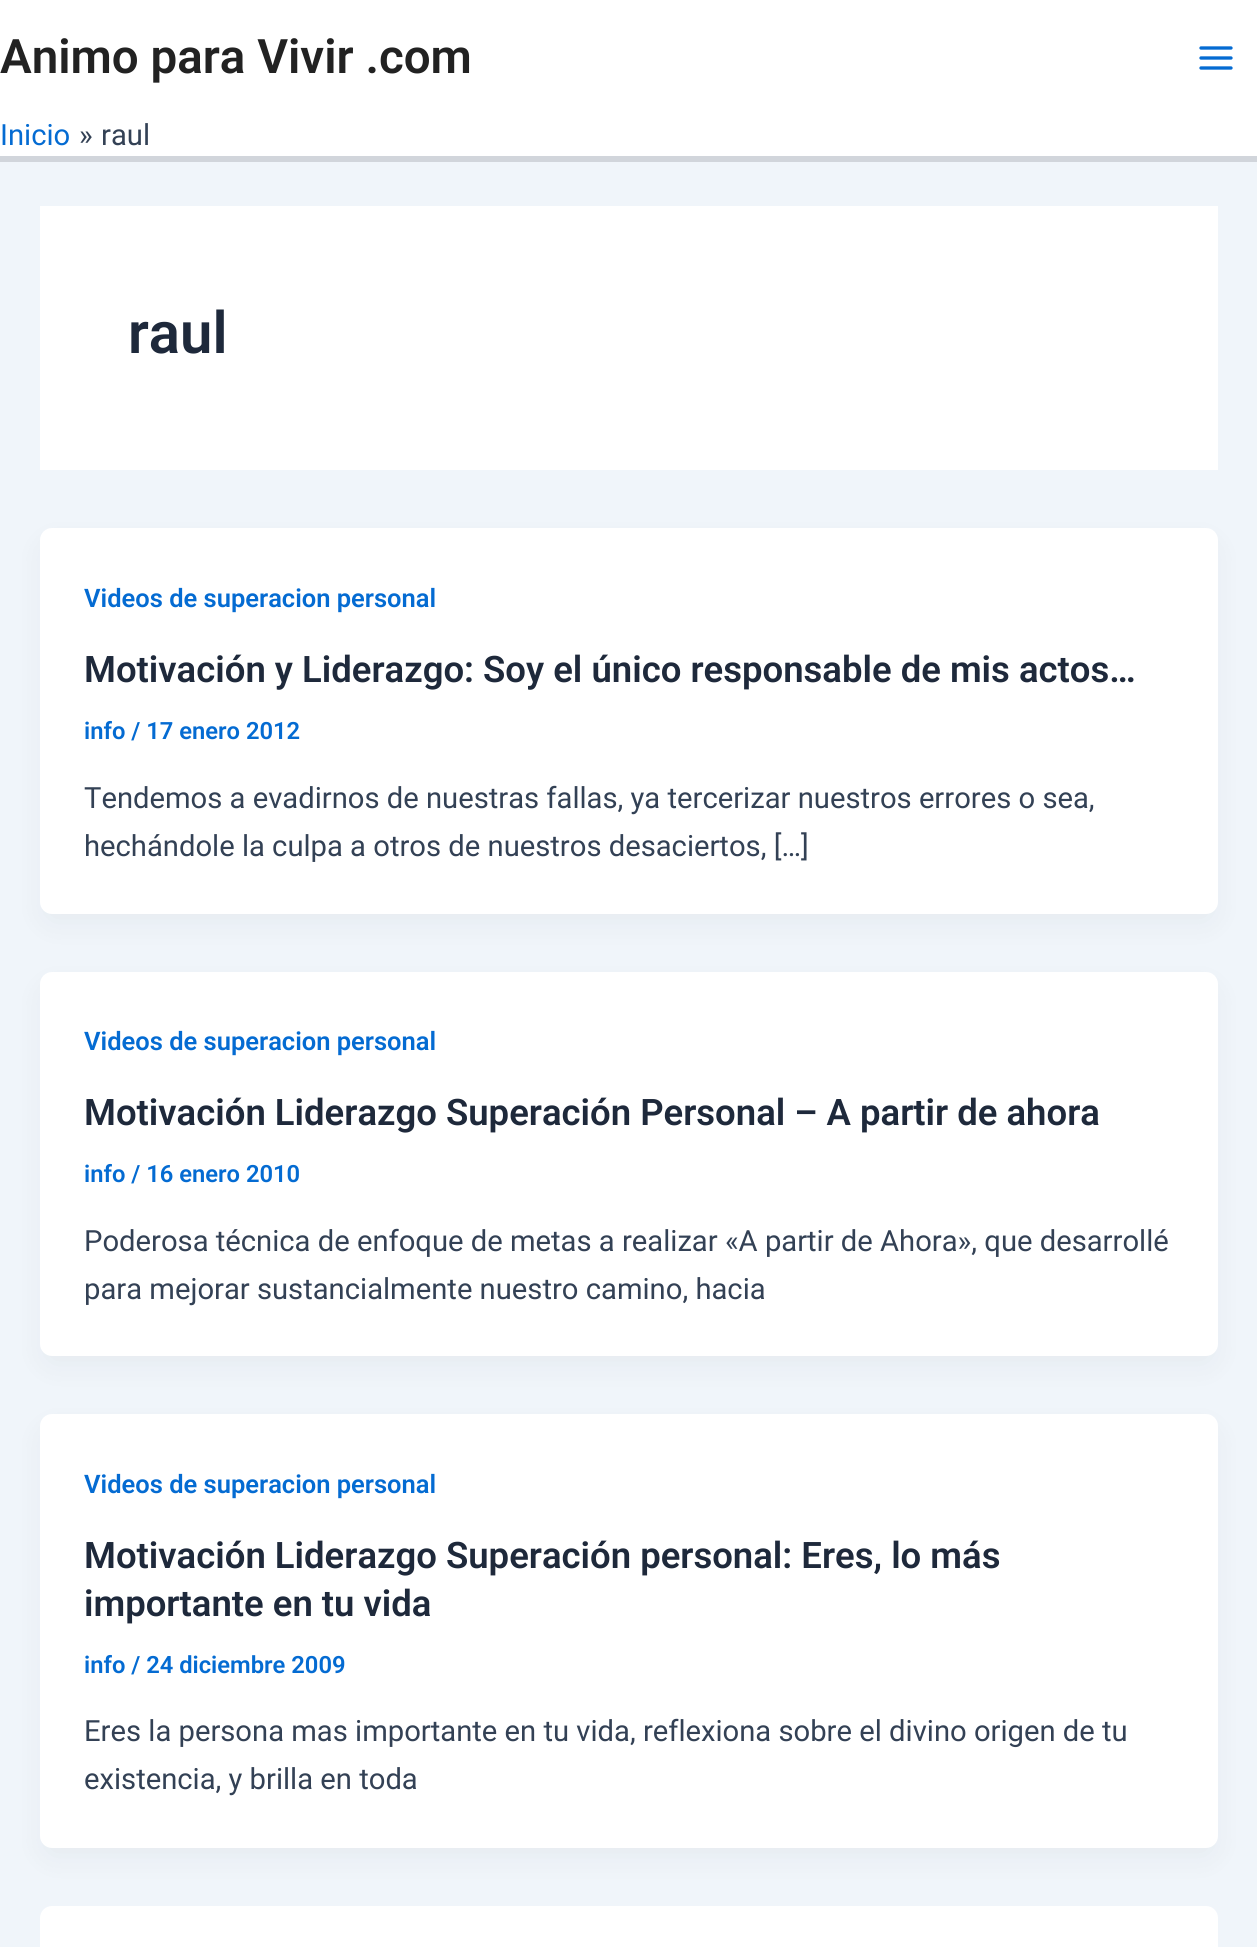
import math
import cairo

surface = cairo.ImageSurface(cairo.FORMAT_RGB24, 1257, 1947)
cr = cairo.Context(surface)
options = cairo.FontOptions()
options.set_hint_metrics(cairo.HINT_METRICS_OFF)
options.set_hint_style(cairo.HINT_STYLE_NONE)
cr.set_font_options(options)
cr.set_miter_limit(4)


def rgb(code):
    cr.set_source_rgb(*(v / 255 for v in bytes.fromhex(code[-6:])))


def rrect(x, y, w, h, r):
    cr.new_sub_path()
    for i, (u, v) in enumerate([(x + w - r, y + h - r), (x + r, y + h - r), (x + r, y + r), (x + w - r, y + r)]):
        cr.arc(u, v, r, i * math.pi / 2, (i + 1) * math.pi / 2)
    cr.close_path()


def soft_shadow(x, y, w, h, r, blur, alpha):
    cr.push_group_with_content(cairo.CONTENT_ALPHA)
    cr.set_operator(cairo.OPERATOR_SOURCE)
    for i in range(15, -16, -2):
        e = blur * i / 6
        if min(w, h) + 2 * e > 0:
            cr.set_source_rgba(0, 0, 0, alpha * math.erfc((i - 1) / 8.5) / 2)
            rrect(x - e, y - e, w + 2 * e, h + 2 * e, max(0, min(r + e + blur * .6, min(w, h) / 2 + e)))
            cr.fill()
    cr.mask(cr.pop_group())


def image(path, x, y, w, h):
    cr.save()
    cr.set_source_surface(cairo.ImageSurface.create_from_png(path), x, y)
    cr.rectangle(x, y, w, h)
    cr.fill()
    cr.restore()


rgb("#f0f5fa")
cr.paint()
rgb("#ffffff")
cr.rectangle(0, 0, 1257, 156)
cr.fill()
rgb("#d1d5db")
cr.rectangle(0, 156, 1257, 6)
cr.fill()
image("img/1.png", 1199, 46, 34, 24)
rgb("#ffffff")
cr.rectangle(40, 206, 1178, 264)
cr.fill()
rgb("#101828")
soft_shadow(44, 544, 1170, 378, 8, 15, 0.05)
rgb("#ffffff")
rrect(40, 528, 1178, 386, 12)
cr.fill()
rgb("#101828")
soft_shadow(44, 988, 1170, 376, 8, 15, 0.05)
rgb("#ffffff")
rrect(40, 972, 1178, 384, 12)
cr.fill()
rgb("#101828")
soft_shadow(44, 1430, 1170, 426, 8, 15, 0.05)
rgb("#ffffff")
rrect(40, 1414, 1178, 434, 12)
cr.fill()
rrect(40, 1906, 1178, 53, 12)
cr.fill()
cr.select_font_face("Roboto SemiBold")
cr.set_font_size(47.5)
rgb("#222222")
cr.move_to(0, 73)
cr.show_text("Animo para Vivir .com")
cr.select_font_face("Roboto")
cr.set_font_size(29.2)
rgb("#046bd2")
cr.move_to(0, 145)
cr.show_text("Inicio")
rgb("#334155")
cr.move_to(79, 145)
cr.show_text("»")
cr.move_to(101, 145)
cr.show_text("raul")
cr.select_font_face("Roboto SemiBold")
cr.set_font_size(58)
rgb("#1e293b")
cr.move_to(128, 353)
cr.show_text("raul")
cr.set_font_size(25.5)
rgb("#046bd2")
cr.move_to(84, 607)
cr.show_text("Videos de superacion personal")
cr.set_font_size(36.5)
rgb("#1e293b")
cr.move_to(84, 682)
cr.show_text("Motivación y Liderazgo: Soy el único responsable de mis actos…")
cr.set_font_size(23.75)
rgb("#046bd2")
cr.move_to(84, 739)
cr.show_text("info / 17 enero 2012")
cr.select_font_face("Roboto")
cr.set_font_size(29.2)
rgb("#334155")
cr.move_to(84, 808)
cr.show_text("Tendemos a evadirnos de nuestras fallas, ya tercerizar nuestros errores o sea,")
cr.move_to(84, 856)
cr.show_text("hechándole la culpa a otros de nuestros desaciertos, […]")
cr.select_font_face("Roboto SemiBold")
cr.set_font_size(25.5)
rgb("#046bd2")
cr.move_to(84, 1050)
cr.show_text("Videos de superacion personal")
cr.set_font_size(36.5)
rgb("#1e293b")
cr.move_to(84, 1125)
cr.show_text("Motivación Liderazgo Superación Personal – A partir de ahora")
cr.set_font_size(23.75)
rgb("#046bd2")
cr.move_to(84, 1182)
cr.show_text("info / 16 enero 2010")
cr.select_font_face("Roboto")
cr.set_font_size(29.2)
rgb("#334155")
cr.move_to(84, 1251)
cr.show_text("Poderosa técnica de enfoque de metas a realizar «A partir de Ahora», que desarrollé")
cr.move_to(84, 1299)
cr.show_text("para mejorar sustancialmente nuestro camino, hacia")
cr.select_font_face("Roboto SemiBold")
cr.set_font_size(25.5)
rgb("#046bd2")
cr.move_to(84, 1493)
cr.show_text("Videos de superacion personal")
cr.set_font_size(36.5)
rgb("#1e293b")
cr.move_to(84, 1568)
cr.show_text("Motivación Liderazgo Superación personal: Eres, lo más")
cr.move_to(84, 1616)
cr.show_text("importante en tu vida")
cr.set_font_size(23.75)
rgb("#046bd2")
cr.move_to(84, 1673)
cr.show_text("info / 24 diciembre 2009")
cr.select_font_face("Roboto")
cr.set_font_size(29.2)
rgb("#334155")
cr.move_to(84, 1741)
cr.show_text("Eres la persona mas importante en tu vida, reflexiona sobre el divino origen de tu")
cr.move_to(84, 1789)
cr.show_text("existencia, y brilla en toda")
surface.write_to_png("page.png")
